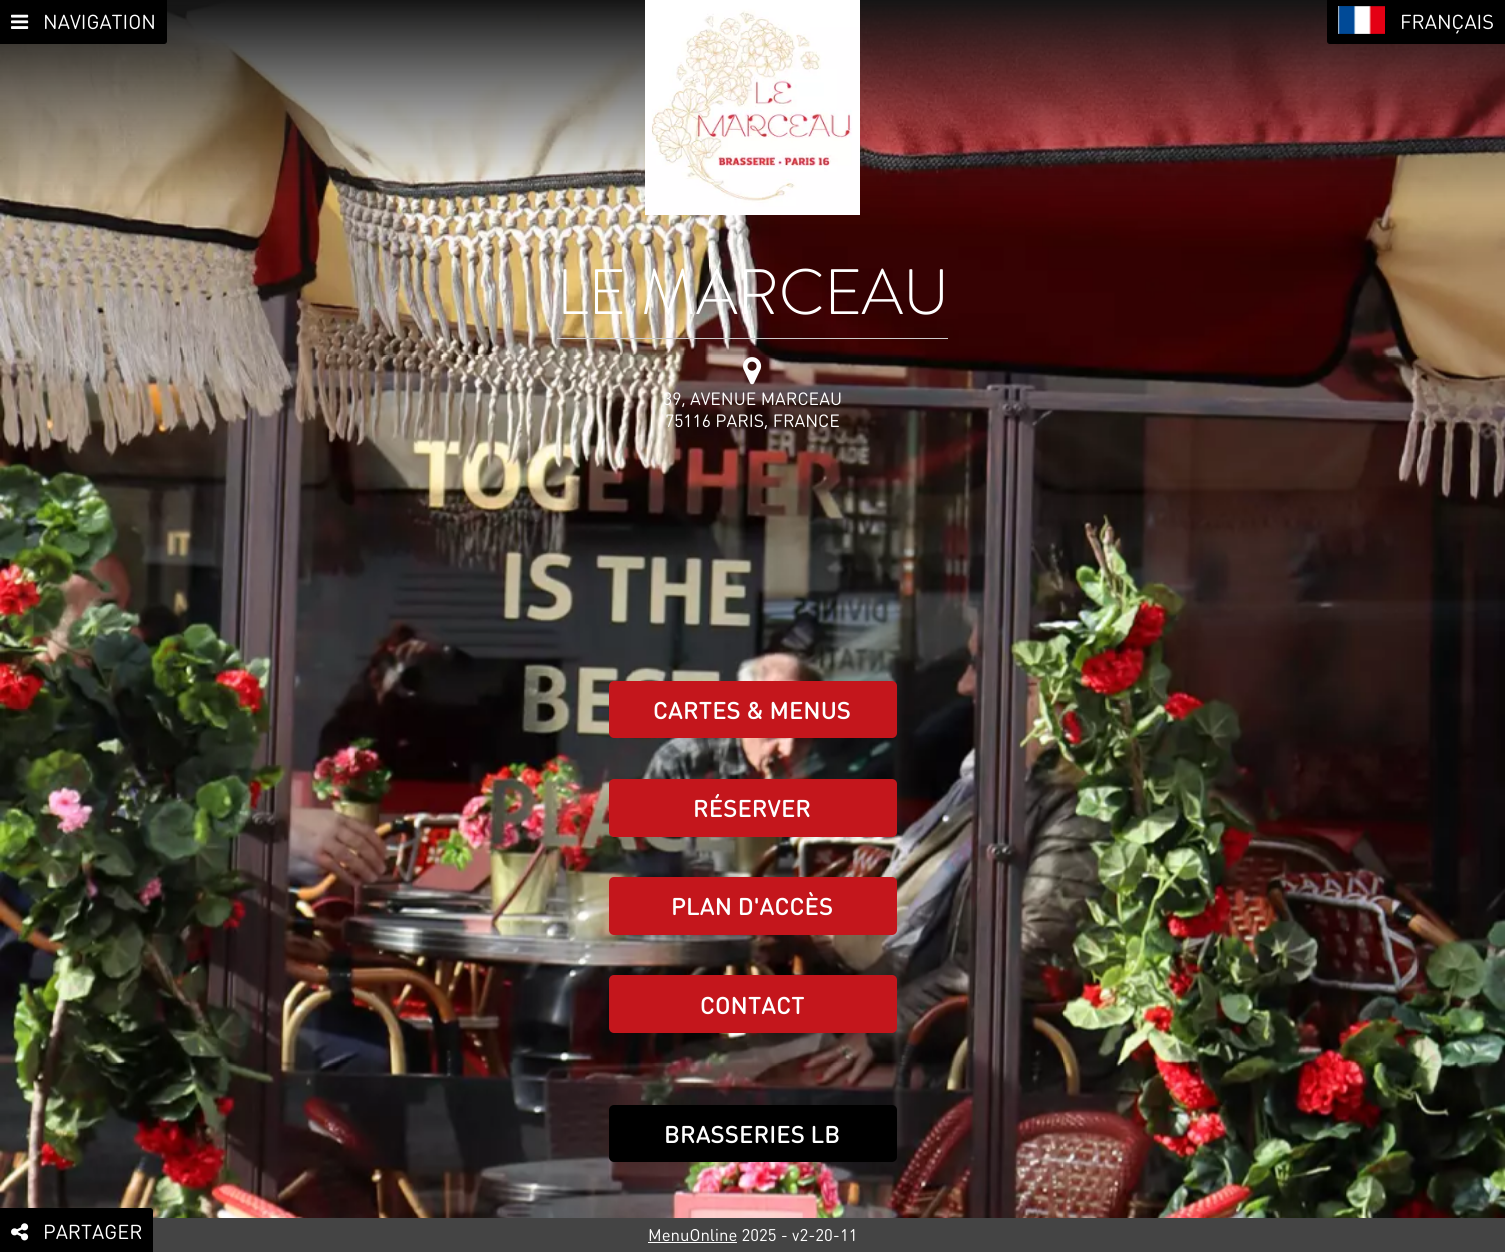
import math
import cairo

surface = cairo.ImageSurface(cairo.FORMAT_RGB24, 1505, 1252)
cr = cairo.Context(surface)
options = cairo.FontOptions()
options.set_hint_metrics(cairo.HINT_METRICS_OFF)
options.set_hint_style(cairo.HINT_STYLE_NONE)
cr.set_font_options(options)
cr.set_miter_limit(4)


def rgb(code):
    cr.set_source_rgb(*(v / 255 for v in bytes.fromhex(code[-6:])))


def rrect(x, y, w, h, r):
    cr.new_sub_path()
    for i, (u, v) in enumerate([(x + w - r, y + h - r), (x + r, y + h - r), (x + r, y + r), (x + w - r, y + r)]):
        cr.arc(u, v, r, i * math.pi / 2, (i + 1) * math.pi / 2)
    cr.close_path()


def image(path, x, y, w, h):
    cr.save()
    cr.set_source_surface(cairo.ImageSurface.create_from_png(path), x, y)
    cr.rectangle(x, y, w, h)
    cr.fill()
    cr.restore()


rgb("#ffffff")
cr.paint()
image("img/1.png", 0, 0, 1505, 1218)
image("img/2.png", 645, 0, 215, 215)
rgb("#000000")
cr.new_path()
cr.move_to(0.5, -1.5)
cr.line_to(166.5, -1.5)
cr.line_to(166.5, 41)
cr.curve_to(166.5, 42.5, 165.5, 43.5, 164, 43.5)
cr.line_to(0.5, 43.5)
cr.close_path()
cr.fill_preserve()
cr.set_line_width(1)
cr.stroke()
image("img/3.png", 11, 14, 18, 15)
cr.new_path()
cr.move_to(1327.5, -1.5)
cr.line_to(1504.5, -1.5)
cr.line_to(1504.5, 43.5)
cr.line_to(1330, 43.5)
cr.curve_to(1328.5, 43.5, 1327.5, 42.5, 1327.5, 41)
cr.close_path()
cr.fill_preserve()
cr.stroke()
image("img/4.png", 1338, 6, 47, 28)
cr.new_path()
cr.move_to(0.5, 1208.5)
cr.line_to(150, 1208.5)
cr.curve_to(151.5, 1208.5, 152.5, 1209.5, 152.5, 1211)
cr.line_to(152.5, 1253.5)
cr.line_to(0.5, 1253.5)
cr.close_path()
cr.fill_preserve()
cr.stroke()
image("img/5.png", 11, 1223, 18, 18)
rgb("#cccccc")
cr.rectangle(557, 338, 391, 1)
cr.fill()
image("img/6.png", 743, 357, 19, 28)
rgb("#c4161c")
rrect(609, 681, 288, 57, 5)
cr.fill()
rrect(609, 779, 288, 58, 5)
cr.fill()
rrect(609, 877, 288, 58, 5)
cr.fill()
rrect(609, 975, 288, 58, 5)
cr.fill()
rgb("#000000")
rrect(609, 1105, 288, 57, 5)
cr.fill()
rgb("#444444")
cr.rectangle(153, 1218, 1352, 34)
cr.fill()
rgb("#ffffff")
cr.rectangle(648, 1242, 89, 1)
cr.fill()
cr.select_font_face("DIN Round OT")
cr.set_font_size(20)
for x, y, s in [
    (43, 29, "NAVIGATION"),
    (1400, 29, "FRANÇAIS"),
    (43, 1239, "PARTAGER"),
]:
    cr.move_to(x, y)
    cr.show_text(s)
cr.select_font_face("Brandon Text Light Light")
cr.set_font_size(64)
cr.move_to(557, 314)
cr.show_text("LE MARCEAU")
cr.select_font_face("DIN Round OT")
cr.set_font_size(17.6)
cr.move_to(663, 405)
cr.show_text("39, AVENUE MARCEAU")
cr.move_to(665, 427)
cr.show_text("75116 PARIS, FRANCE")
cr.select_font_face("DIN Round OT Medium")
cr.set_font_size(24)
for x, y, s in [
    (653, 719, "CARTES & MENUS"),
    (693, 817, "RÉSERVER"),
    (671, 915, "PLAN D'ACCÈS"),
    (700, 1014, "CONTACT"),
    (664, 1143, "BRASSERIES LB"),
]:
    cr.move_to(x, y)
    cr.show_text(s)
cr.select_font_face("DIN Round OT")
cr.set_font_size(16.75)
cr.move_to(648, 1241)
cr.show_text("MenuOnline 2025 - v2-20-11")
surface.write_to_png("page.png")
